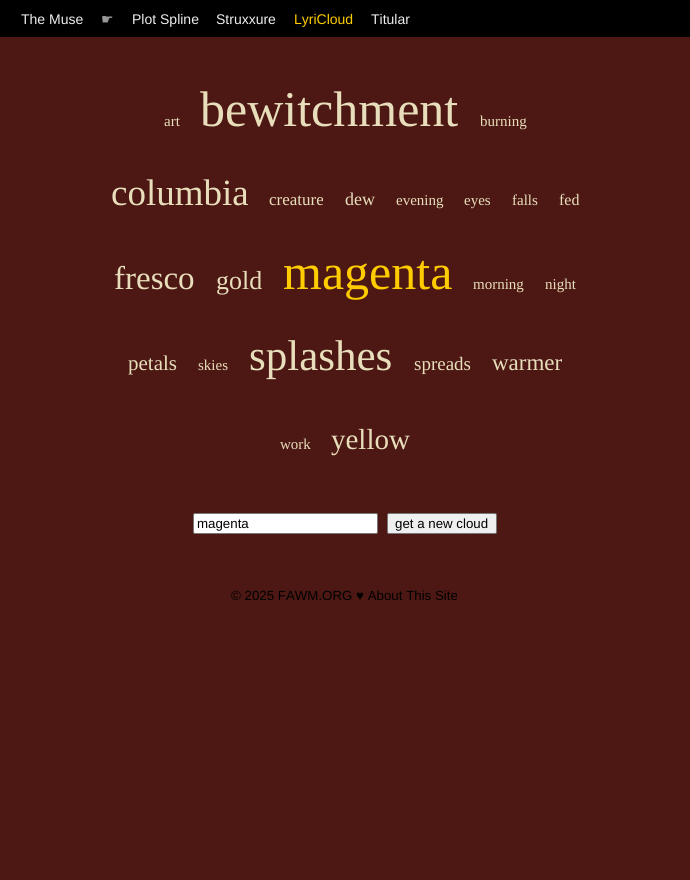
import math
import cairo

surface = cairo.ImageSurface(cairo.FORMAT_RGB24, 690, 880)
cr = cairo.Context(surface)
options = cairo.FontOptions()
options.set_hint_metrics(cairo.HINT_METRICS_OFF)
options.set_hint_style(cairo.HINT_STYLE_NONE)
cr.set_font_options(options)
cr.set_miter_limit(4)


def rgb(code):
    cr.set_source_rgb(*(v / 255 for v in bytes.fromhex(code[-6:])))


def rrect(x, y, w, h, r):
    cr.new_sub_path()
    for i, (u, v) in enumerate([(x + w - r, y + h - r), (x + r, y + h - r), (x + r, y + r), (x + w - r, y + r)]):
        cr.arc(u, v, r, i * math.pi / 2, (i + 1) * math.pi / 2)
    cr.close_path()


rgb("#4d1814")
cr.paint()
rgb("#000000")
cr.rectangle(0, 0, 690, 37)
cr.fill()
rgb("#ffffff")
rrect(193.5, 513.5, 184, 20, 1.5)
cr.fill_preserve()
rgb("#767676")
cr.set_line_width(1)
cr.stroke()
rgb("#efefef")
rrect(387.5, 513.5, 109, 20, 1.5)
cr.fill_preserve()
rgb("#767676")
cr.stroke()
cr.select_font_face("Liberation Sans")
cr.set_font_size(14)
rgb("#eeeeee")
cr.move_to(21, 24)
cr.show_text("The Muse")
cr.select_font_face("DejaVu Sans")
rgb("#999999")
cr.move_to(101, 24)
cr.show_text("☛")
cr.select_font_face("Liberation Sans")
rgb("#eeeeee")
cr.move_to(132, 24)
cr.show_text("Plot Spline")
cr.move_to(216, 24)
cr.show_text("Struxxure")
rgb("#ffcc00")
cr.move_to(294, 24)
cr.show_text("LyriCloud")
rgb("#eeeeee")
cr.move_to(371, 24)
cr.show_text("Titular")
cr.select_font_face("Liberation Serif")
cr.set_font_size(15)
rgb("#e8debb")
cr.move_to(164, 126)
cr.show_text("art")
cr.set_font_size(50)
cr.move_to(200, 126)
cr.show_text("bewitchment")
cr.set_font_size(15)
cr.move_to(480, 126)
cr.show_text("burning")
cr.set_font_size(37)
cr.move_to(111, 205)
cr.show_text("columbia")
cr.set_font_size(17)
cr.move_to(269, 205)
cr.show_text("creature")
cr.set_font_size(18)
cr.move_to(345, 205)
cr.show_text("dew")
cr.set_font_size(15)
for x, y, s in [
    (396, 205, "evening"),
    (464, 205, "eyes"),
    (512, 205, "falls"),
]:
    cr.move_to(x, y)
    cr.show_text(s)
cr.set_font_size(16)
cr.move_to(559, 205)
cr.show_text("fed")
cr.set_font_size(33)
cr.move_to(114, 289)
cr.show_text("fresco")
cr.set_font_size(26)
cr.move_to(216, 289)
cr.show_text("gold")
cr.set_font_size(50)
rgb("#ffcc00")
cr.move_to(283, 289)
cr.show_text("magenta")
cr.set_font_size(15)
rgb("#e8debb")
cr.move_to(473, 289)
cr.show_text("morning")
cr.move_to(545, 289)
cr.show_text("night")
cr.set_font_size(21)
cr.move_to(128, 370)
cr.show_text("petals")
cr.set_font_size(15)
cr.move_to(198, 370)
cr.show_text("skies")
cr.set_font_size(43)
cr.move_to(249, 370)
cr.show_text("splashes")
cr.set_font_size(19)
cr.move_to(414, 370)
cr.show_text("spreads")
cr.set_font_size(23)
cr.move_to(492, 370)
cr.show_text("warmer")
cr.set_font_size(15)
cr.move_to(280, 449)
cr.show_text("work")
cr.set_font_size(29)
cr.move_to(331, 449)
cr.show_text("yellow")
cr.select_font_face("Liberation Sans")
cr.set_font_size(13.3)
rgb("#000000")
for x, y, s in [
    (197, 528, "magenta"),
    (395, 528, "get a new cloud"),
    (231, 600, "© 2025 FAWM.ORG ♥ About This Site"),
]:
    cr.move_to(x, y)
    cr.show_text(s)
surface.write_to_png("page.png")
